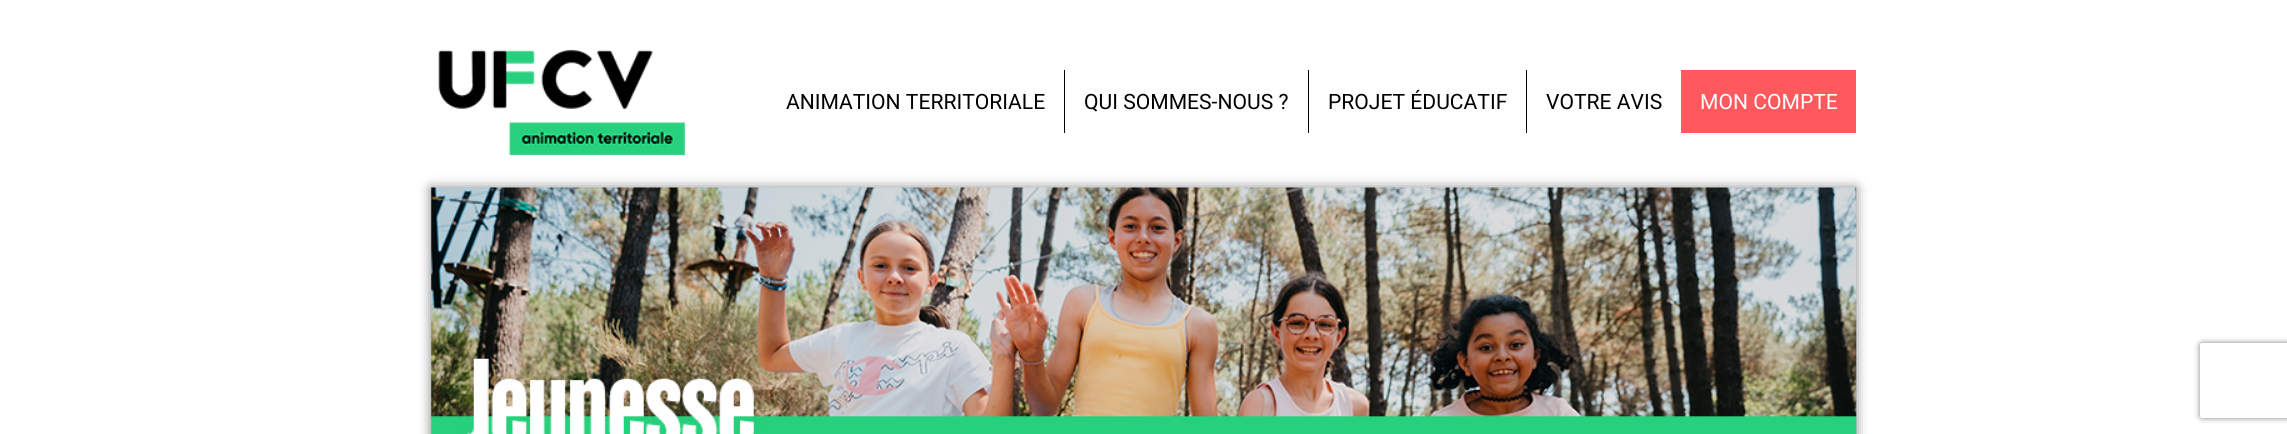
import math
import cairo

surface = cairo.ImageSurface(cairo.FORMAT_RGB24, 2287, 434)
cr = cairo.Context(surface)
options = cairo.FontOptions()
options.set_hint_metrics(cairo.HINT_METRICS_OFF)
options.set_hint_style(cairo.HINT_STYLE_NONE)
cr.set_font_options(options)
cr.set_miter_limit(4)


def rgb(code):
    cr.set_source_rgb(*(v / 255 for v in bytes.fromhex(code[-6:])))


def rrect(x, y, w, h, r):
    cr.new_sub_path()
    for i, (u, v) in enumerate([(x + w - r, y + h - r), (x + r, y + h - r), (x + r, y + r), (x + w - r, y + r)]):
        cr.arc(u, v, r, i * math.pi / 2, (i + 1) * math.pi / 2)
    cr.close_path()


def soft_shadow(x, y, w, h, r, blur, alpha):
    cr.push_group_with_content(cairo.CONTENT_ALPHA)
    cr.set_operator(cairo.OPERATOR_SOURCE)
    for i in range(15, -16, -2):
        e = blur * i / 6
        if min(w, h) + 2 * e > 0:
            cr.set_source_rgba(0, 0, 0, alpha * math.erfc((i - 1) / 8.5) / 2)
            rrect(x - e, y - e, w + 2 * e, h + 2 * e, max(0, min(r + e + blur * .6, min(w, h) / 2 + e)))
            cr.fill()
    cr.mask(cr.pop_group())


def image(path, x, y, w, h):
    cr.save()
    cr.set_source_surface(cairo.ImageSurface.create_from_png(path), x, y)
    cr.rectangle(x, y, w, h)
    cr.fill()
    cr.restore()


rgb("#ffffff")
cr.paint()
image("img/1.png", 438, 49, 248, 107)
for x, y, w, h, color in [
    (1064, 70, 1, 63, "#000000"),
    (1308, 70, 1, 63, "#000000"),
    (1526, 70, 1, 63, "#000000"),
    (1681, 70, 175, 63, "#ff585d"),
]:
    rgb(color)
    cr.rectangle(x, y, w, h)
    cr.fill()
rgb("#000000")
soft_shadow(431, 188, 1425, 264, 0, 6, 0.5)
image("img/2.png", 431, 187, 1426, 247)
cr.save()
cr.set_fill_rule(cairo.FILL_RULE_EVEN_ODD)
cr.new_path()
cr.move_to(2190, 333)
cr.line_to(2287, 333)
cr.line_to(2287, 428)
cr.line_to(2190, 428)
cr.close_path()
cr.move_to(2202.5, 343)
cr.line_to(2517.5, 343)
cr.curve_to(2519, 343, 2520, 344, 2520, 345.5)
cr.line_to(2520, 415.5)
cr.curve_to(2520, 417, 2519, 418, 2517.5, 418)
cr.line_to(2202.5, 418)
cr.curve_to(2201, 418, 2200, 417, 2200, 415.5)
cr.line_to(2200, 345.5)
cr.curve_to(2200, 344, 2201, 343, 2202.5, 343)
cr.close_path()
cr.clip()
rgb("#808080")
soft_shadow(2200, 343, 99, 75, 2.5, 3, 1)
cr.restore()
cr.select_font_face("Roboto")
cr.set_font_size(21.1)
rgb("#000000")
for x, y, s in [
    (786, 109, "ANIMATION TERRITORIALE"),
    (1084, 109, "QUI SOMMES-NOUS ?"),
    (1328, 109, "PROJET ÉDUCATIF"),
    (1546, 109, "VOTRE AVIS"),
]:
    cr.move_to(x, y)
    cr.show_text(s)
rgb("#ffffff")
cr.move_to(1700, 109)
cr.show_text("MON COMPTE")
surface.write_to_png("page.png")
